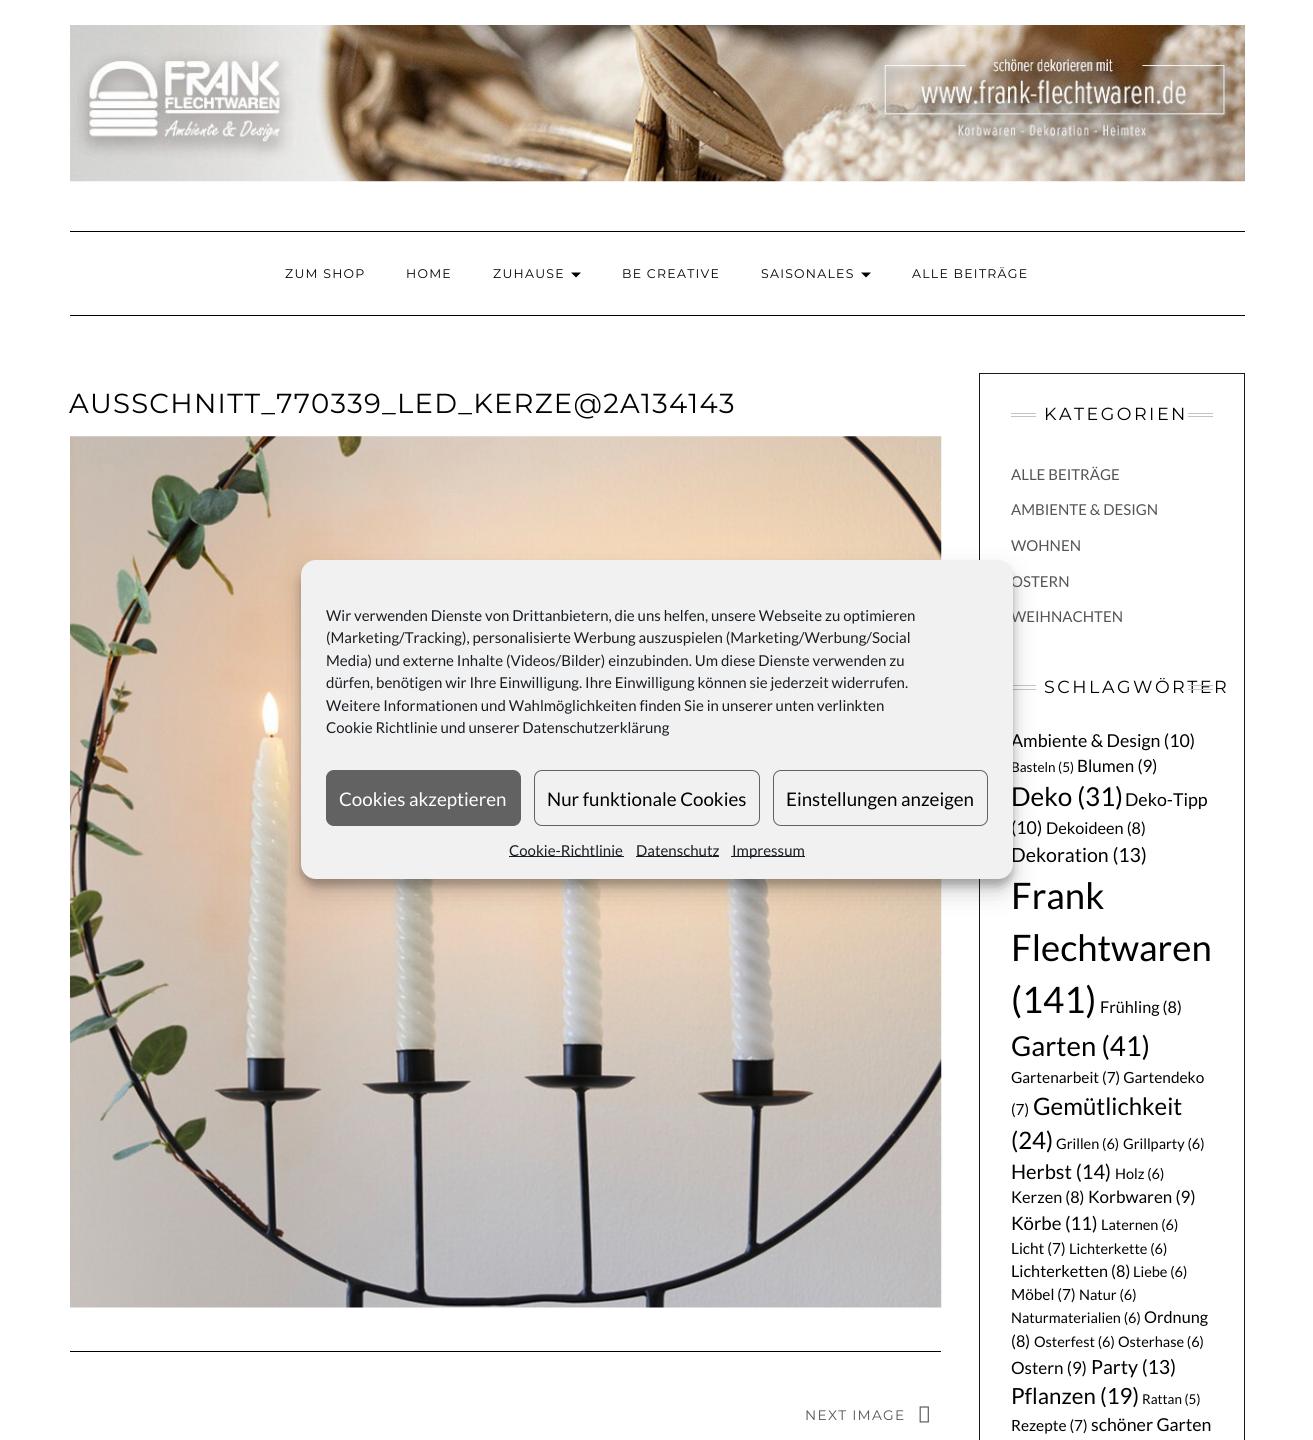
import math
import cairo

surface = cairo.ImageSurface(cairo.FORMAT_RGB24, 1313, 1440)
cr = cairo.Context(surface)
options = cairo.FontOptions()
options.set_hint_metrics(cairo.HINT_METRICS_OFF)
options.set_hint_style(cairo.HINT_STYLE_NONE)
cr.set_font_options(options)
cr.set_miter_limit(4)


def rgb(code):
    cr.set_source_rgb(*(v / 255 for v in bytes.fromhex(code[-6:])))


def tracked(x, y, s, letter, word):
    cr.move_to(x, y)
    for ch in s:
        cr.show_text(ch)
        cr.rel_move_to(letter + word * (ch == ' '), 0)


def rrect(x, y, w, h, r):
    cr.new_sub_path()
    for i, (u, v) in enumerate([(x + w - r, y + h - r), (x + r, y + h - r), (x + r, y + r), (x + w - r, y + r)]):
        cr.arc(u, v, r, i * math.pi / 2, (i + 1) * math.pi / 2)
    cr.close_path()


def soft_shadow(x, y, w, h, r, blur, alpha):
    cr.push_group_with_content(cairo.CONTENT_ALPHA)
    cr.set_operator(cairo.OPERATOR_SOURCE)
    for i in range(15, -16, -2):
        e = blur * i / 6
        if min(w, h) + 2 * e > 0:
            cr.set_source_rgba(0, 0, 0, alpha * math.erfc((i - 1) / 8.5) / 2)
            rrect(x - e, y - e, w + 2 * e, h + 2 * e, max(0, min(r + e + blur * .6, min(w, h) / 2 + e)))
            cr.fill()
    cr.mask(cr.pop_group())


def image(path, x, y, w, h):
    cr.save()
    cr.set_source_surface(cairo.ImageSurface.create_from_png(path), x, y)
    cr.rectangle(x, y, w, h)
    cr.fill()
    cr.restore()


rgb("#ffffff")
cr.paint()
image("img/1.png", 70, 25, 1175, 157)
rgb("#000000")
cr.rectangle(70, 231, 1175, 1)
cr.fill()
cr.rectangle(70, 315, 1175, 1)
cr.fill()
cr.new_path()
cr.move_to(571, 272.5)
cr.line_to(581, 272.5)
cr.line_to(576, 277.5)
cr.close_path()
cr.fill()
cr.new_path()
cr.move_to(861, 272.5)
cr.line_to(871, 272.5)
cr.line_to(866, 277.5)
cr.close_path()
cr.fill()
image("img/2.png", 70, 436, 872, 872)
cr.rectangle(70, 1351, 871, 1)
cr.fill()
image("img/3.png", 919, 1406, 10, 17)
cr.rectangle(979.5, 373.5, 265, 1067)
rgb("#1a1a1a")
cr.set_line_width(1)
cr.stroke()
for x, y, w, h, color in [
    (1011, 413, 25, 1, "#c4c4c4"),
    (1011, 416, 25, 1, "#c4c4c4"),
    (1188, 413, 25, 1, "#c4c4c4"),
    (1188, 416, 25, 1, "#c4c4c4"),
    (1011, 685, 25, 1, "#c4c4c4"),
    (1011, 689, 25, 1, "#c4c4c4"),
]:
    rgb(color)
    cr.rectangle(x, y, w, h)
    cr.fill()
rgb("#000000")
soft_shadow(301, 568, 712, 318, 15, 4, 0.23)
soft_shadow(301, 573, 712, 318, 15, 12.5, 0.19)
cr.select_font_face("Montserrat")
cr.set_font_size(12.5)
rgb("#000000")
for x, y, s in [
    (285, 278, "ZUM SHOP"),
    (406, 278, "HOME"),
    (493, 278, "ZUHAUSE"),
    (622, 278, "BE CREATIVE"),
    (761, 278, "SAISONALES"),
    (912, 278, "ALLE BEITRÄGE"),
]:
    tracked(x, y, s, 1.25, 0)
cr.set_font_size(27.5)
tracked(69, 413, "AUSSCHNITT_770339_LED_KERZE@2A134143", 1.25, 0)
cr.set_font_size(13.75)
rgb("#555555")
tracked(805, 1420, "NEXT IMAGE", 1.25, 0)
cr.set_font_size(17.5)
rgb("#000000")
tracked(1044, 420, "KATEGORIEN", 2.5, 0)
cr.select_font_face("Lato")
cr.set_font_size(15)
rgb("#555555")
for x, y, s in [
    (1011, 480, "ALLE BEITRÄGE"),
    (1011, 515, "AMBIENTE & DESIGN"),
    (1011, 551, "WOHNEN"),
    (1011, 587, "OSTERN"),
    (1011, 622, "WEIHNACHTEN"),
]:
    cr.move_to(x, y)
    cr.show_text(s)
cr.select_font_face("Montserrat")
cr.set_font_size(17.5)
rgb("#000000")
tracked(1044, 693, "SCHLAGWÖRTER", 2.5, 0)
rgb("#c4c4c4")
cr.rectangle(1188, 685, 25, 1)
cr.fill()
cr.rectangle(1188, 689, 25, 1)
cr.fill()
cr.select_font_face("Lato")
cr.set_font_size(17.75)
rgb("#000000")
cr.move_to(1011, 747)
cr.show_text("Ambiente & Design (10)")
cr.set_font_size(13.5)
cr.move_to(1011, 772)
cr.show_text("Basteln (5)")
cr.set_font_size(17)
cr.move_to(1077, 772)
cr.show_text("Blumen (9)")
cr.set_font_size(26)
cr.move_to(1011, 806)
cr.show_text("Deko (31)")
cr.set_font_size(17.75)
cr.move_to(1125, 806)
cr.show_text("Deko-Tipp")
cr.move_to(1011, 834)
cr.show_text("(10)")
cr.set_font_size(16.25)
cr.move_to(1046, 834)
cr.show_text("Dekoideen (8)")
cr.set_font_size(19.5)
cr.move_to(1011, 862)
cr.show_text("Dekoration (13)")
cr.set_font_size(36.5)
for x, y, s in [
    (1011, 909, "Frank"),
    (1011, 961, "Flechtwaren"),
    (1011, 1013, "(141)"),
]:
    cr.move_to(x, y)
    cr.show_text(s)
cr.set_font_size(16.25)
cr.move_to(1100, 1013)
cr.show_text("Frühling (8)")
cr.set_font_size(27.5)
cr.move_to(1011, 1056)
cr.show_text("Garten (41)")
cr.set_font_size(15.4)
cr.move_to(1011, 1083)
cr.show_text("Gartenarbeit (7) Gartendeko")
cr.move_to(1011, 1115)
cr.show_text("(7)")
cr.set_font_size(24)
cr.move_to(1033, 1115)
cr.show_text("Gemütlichkeit")
cr.move_to(1011, 1149)
cr.show_text("(24)")
cr.set_font_size(14.5)
cr.move_to(1056, 1149)
cr.show_text("Grillen (6)")
cr.move_to(1123, 1149)
cr.show_text("Grillparty (6)")
cr.set_font_size(20)
cr.move_to(1011, 1179)
cr.show_text("Herbst (14)")
cr.set_font_size(14.5)
cr.move_to(1115, 1179)
cr.show_text("Holz (6)")
cr.set_font_size(16.25)
cr.move_to(1011, 1203)
cr.show_text("Kerzen (8)")
cr.set_font_size(17)
cr.move_to(1088, 1203)
cr.show_text("Korbwaren (9)")
cr.set_font_size(18.5)
cr.move_to(1011, 1230)
cr.show_text("Körbe (11)")
cr.set_font_size(14.5)
cr.move_to(1101, 1230)
cr.show_text("Laternen (6)")
cr.set_font_size(15.4)
cr.move_to(1011, 1254)
cr.show_text("Licht (7)")
cr.set_font_size(14.5)
cr.move_to(1069, 1254)
cr.show_text("Lichterkette (6)")
cr.set_font_size(16.25)
cr.move_to(1011, 1277)
cr.show_text("Lichterketten (8)")
cr.set_font_size(14.5)
cr.move_to(1133, 1277)
cr.show_text("Liebe (6)")
cr.set_font_size(15.4)
cr.move_to(1011, 1300)
cr.show_text("Möbel (7)")
cr.set_font_size(14.5)
cr.move_to(1079, 1300)
cr.show_text("Natur (6)")
cr.move_to(1011, 1323)
cr.show_text("Naturmaterialien (6)")
cr.set_font_size(16.25)
cr.move_to(1144, 1323)
cr.show_text("Ordnung")
cr.move_to(1011, 1347)
cr.show_text("(8)")
cr.set_font_size(14.5)
cr.move_to(1034, 1347)
cr.show_text("Osterfest (6)")
cr.move_to(1118, 1347)
cr.show_text("Osterhase (6)")
cr.set_font_size(17)
cr.move_to(1011, 1374)
cr.show_text("Ostern (9)")
cr.set_font_size(19.5)
cr.move_to(1091, 1374)
cr.show_text("Party (13)")
cr.set_font_size(22.25)
cr.move_to(1011, 1404)
cr.show_text("Pflanzen (19)")
cr.set_font_size(13.5)
cr.move_to(1142, 1404)
cr.show_text("Rattan (5)")
cr.set_font_size(15.4)
cr.move_to(1011, 1431)
cr.show_text("Rezepte (7)")
cr.set_font_size(17.75)
cr.move_to(1091, 1431)
cr.show_text("schöner Garten")
rgb("#f1f1f1")
rrect(301, 560, 712, 319, 15)
cr.fill()
cr.set_font_size(15)
rgb("#191e23")
for x, y, s in [
    (326, 621, "Wir verwenden Dienste von Drittanbietern, die uns helfen, unsere Webseite zu optimieren"),
    (326, 643, "(Marketing/Tracking), personalisierte Werbung auszuspielen (Marketing/Werbung/Social"),
    (326, 666, "Media) und externe Inhalte (Videos/Bilder) einzubinden. Um diese Dienste verwenden zu"),
    (326, 688, "dürfen, benötigen wir Ihre Einwilligung. Ihre Einwilligung können sie jederzeit widerrufen."),
    (326, 711, "Weitere Informationen und Wahlmöglichkeiten finden Sie in unserer unten verlinkten"),
    (326, 733, "Cookie Richtlinie und unserer Datenschutzerklärung"),
]:
    cr.move_to(x, y)
    cr.show_text(s)
rgb("#626262")
rrect(326.5, 770.5, 194, 55, 7.5)
cr.fill_preserve()
cr.stroke()
cr.set_font_size(18.75)
rgb("#ffffff")
cr.move_to(339, 806)
cr.show_text("Cookies akzeptieren")
rrect(534.5, 770.5, 225, 55, 7.5)
rgb("#626262")
cr.stroke()
rgb("#000000")
cr.move_to(547, 806)
cr.show_text("Nur funktionale Cookies")
rrect(773.5, 770.5, 214, 55, 7.5)
rgb("#626262")
cr.stroke()
rgb("#000000")
cr.move_to(786, 806)
cr.show_text("Einstellungen anzeigen")
rgb("#191e23")
cr.rectangle(509, 856, 115, 1)
cr.fill()
cr.set_font_size(15)
cr.move_to(509, 856)
cr.show_text("Cookie-Richtlinie")
cr.rectangle(636, 856, 83, 1)
cr.fill()
cr.move_to(636, 856)
cr.show_text("Datenschutz")
cr.rectangle(731, 856, 74, 1)
cr.fill()
cr.move_to(732, 856)
cr.show_text("Impressum")
surface.write_to_png("page.png")
